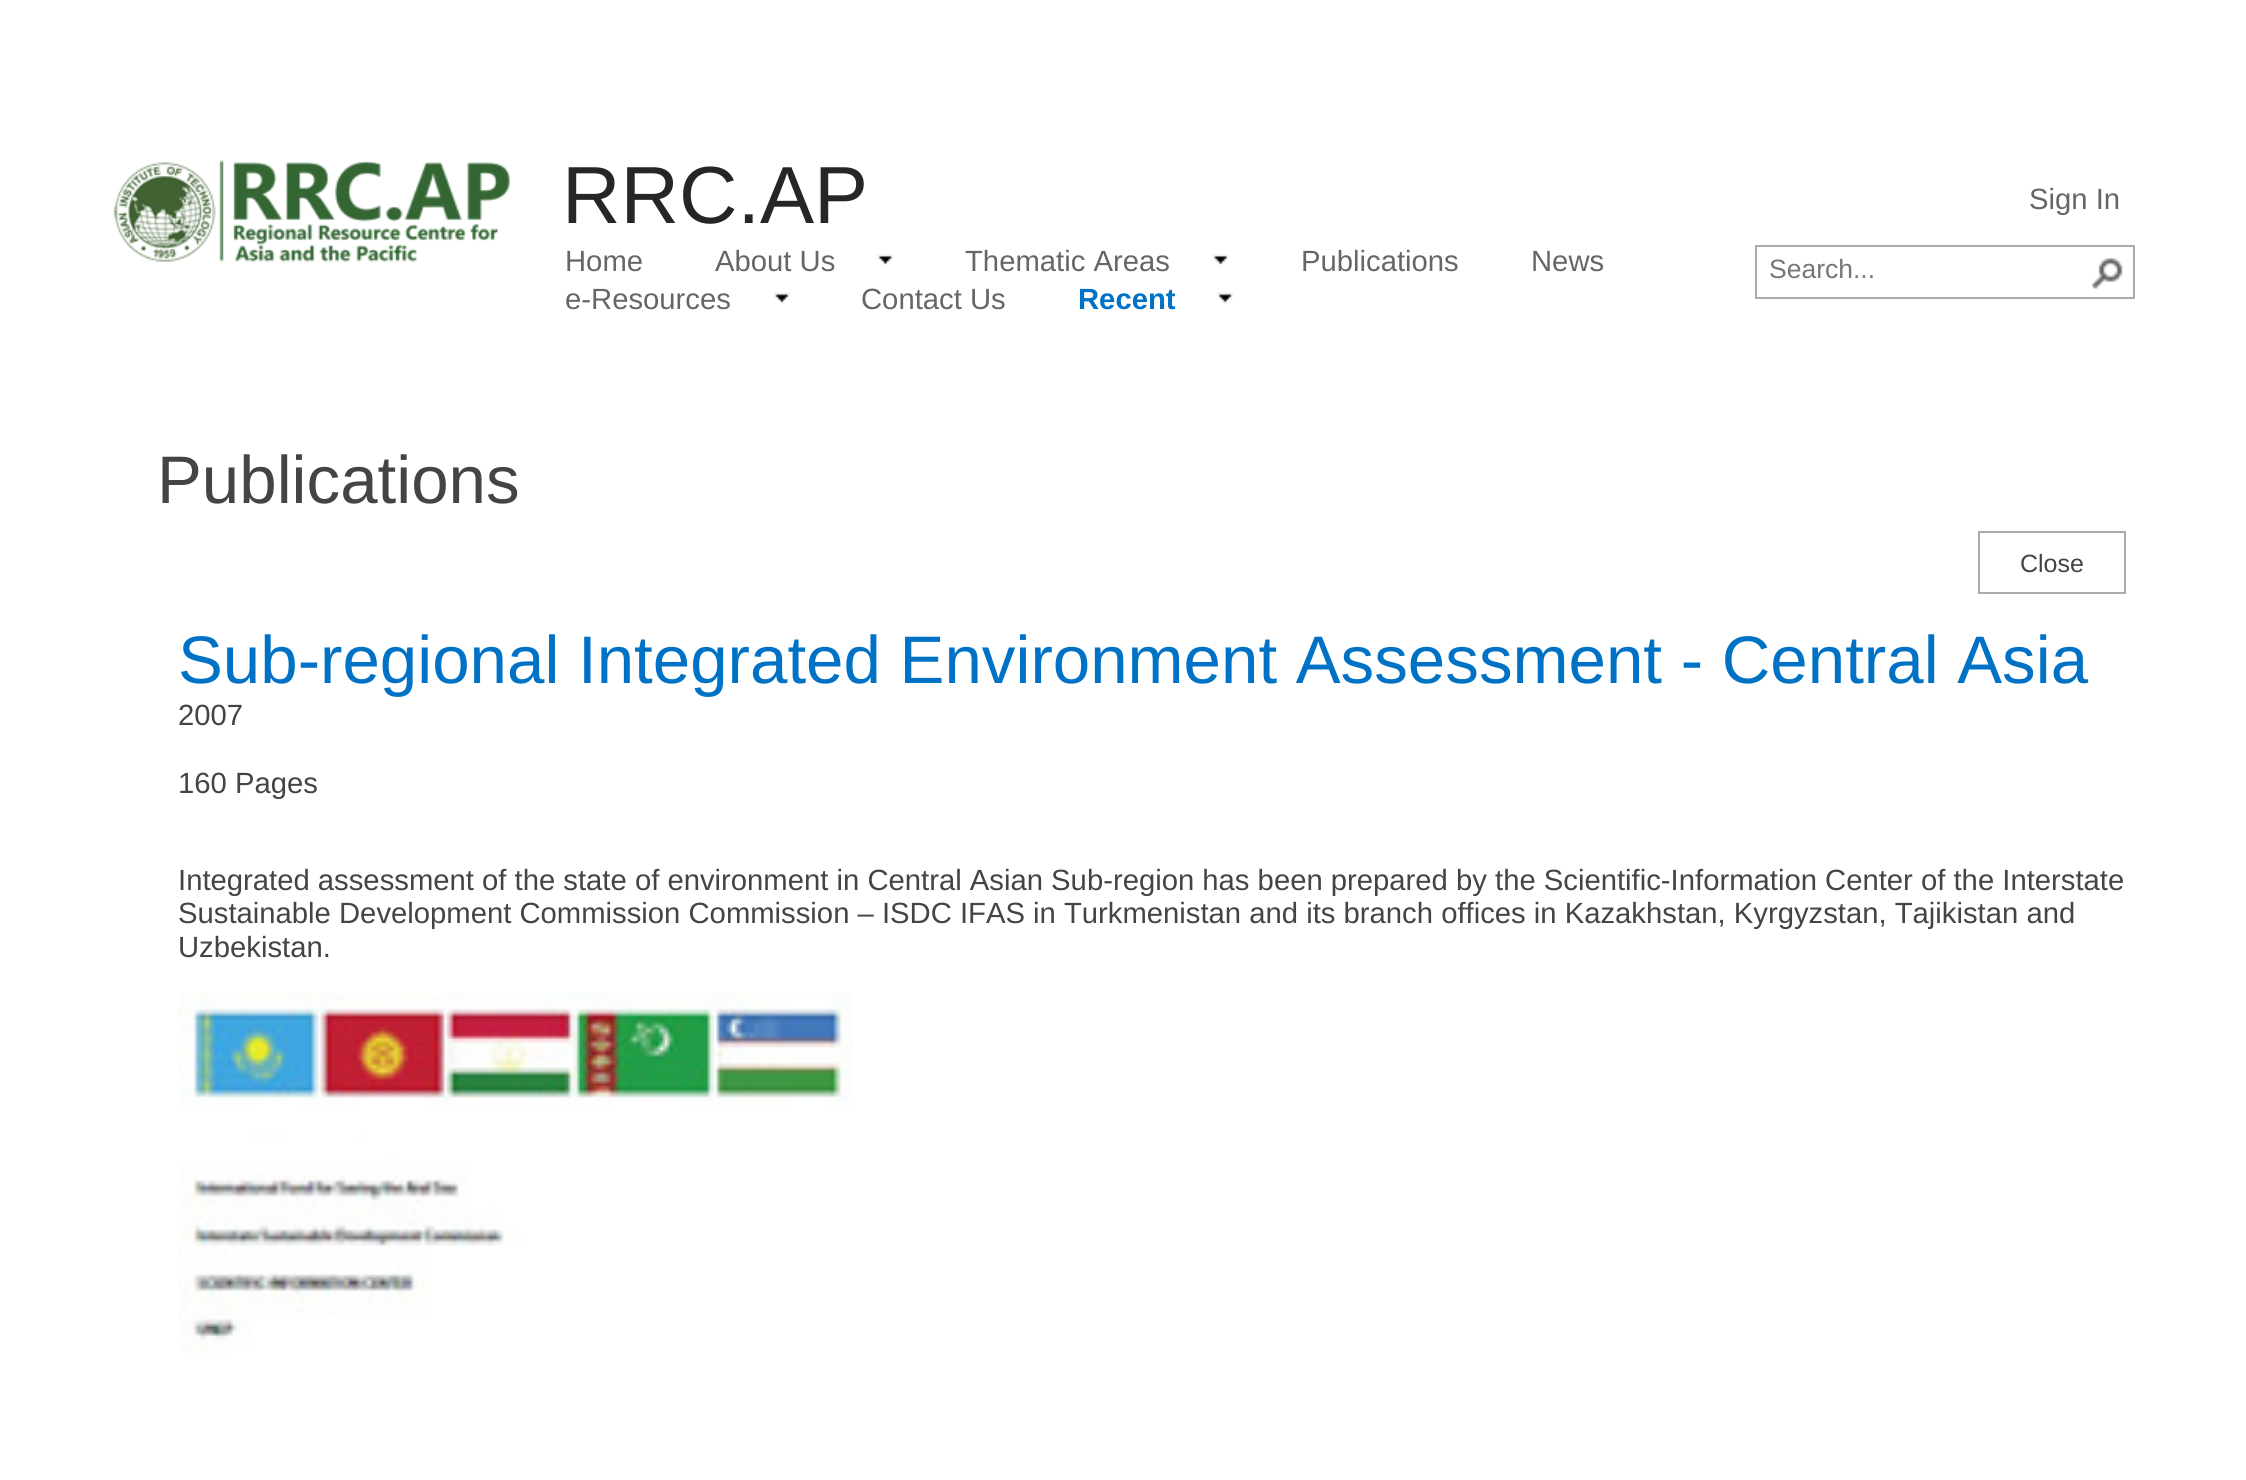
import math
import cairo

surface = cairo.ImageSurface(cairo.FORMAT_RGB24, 2246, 1480)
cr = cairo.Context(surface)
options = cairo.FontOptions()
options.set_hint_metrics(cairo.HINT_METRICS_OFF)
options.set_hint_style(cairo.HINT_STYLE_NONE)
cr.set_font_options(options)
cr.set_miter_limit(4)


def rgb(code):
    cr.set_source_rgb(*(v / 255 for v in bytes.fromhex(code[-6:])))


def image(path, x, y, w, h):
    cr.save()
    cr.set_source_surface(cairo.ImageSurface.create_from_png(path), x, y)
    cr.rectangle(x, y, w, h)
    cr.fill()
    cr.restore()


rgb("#ffffff")
cr.paint()
image("img/1.png", 113, 160, 397, 102)
image("img/2.png", 877, 254, 17, 12)
image("img/3.png", 1212, 254, 17, 12)
image("img/4.png", 774, 292, 16, 12)
image("img/5.png", 1217, 292, 16, 12)
cr.rectangle(1756, 246, 378, 52)
rgb("#ababab")
cr.stroke()
image("img/6.png", 2091, 258, 32, 32)
cr.rectangle(1979, 532, 146, 61)
cr.stroke()
image("img/7.png", 178, 992, 675, 361)
cr.select_font_face("Liberation Sans")
cr.set_font_size(81)
rgb("#262626")
cr.move_to(562, 223)
cr.show_text("RRC.AP")
cr.set_font_size(29.25)
rgb("#666666")
for x, y, s in [
    (565, 271, "Home"),
    (715, 271, "About Us"),
    (965, 271, "Thematic Areas"),
    (1301, 271, "Publications"),
    (1531, 271, "News"),
    (565, 309, "e-Resources"),
    (861, 309, "Contact Us"),
]:
    cr.move_to(x, y)
    cr.show_text(s)
cr.select_font_face("Liberation Sans", cairo.FONT_SLANT_NORMAL, cairo.FONT_WEIGHT_BOLD)
rgb("#0072c6")
cr.move_to(1078, 309)
cr.show_text("Recent")
cr.select_font_face("Liberation Sans")
rgb("#666666")
cr.move_to(2029, 209)
cr.show_text("Sign In")
cr.set_font_size(26.5)
rgb("#777777")
cr.move_to(1769, 278)
cr.show_text("Search...")
cr.set_font_size(67.25)
rgb("#444444")
cr.move_to(157, 503)
cr.show_text("Publications")
cr.set_font_size(25)
cr.move_to(2020, 572)
cr.show_text("Close")
cr.set_font_size(67.25)
rgb("#0072c6")
cr.move_to(178, 683)
cr.show_text("Sub-regional Integrated Environment Assessment - Central Asia")
cr.set_font_size(29.25)
rgb("#444444")
for x, y, s in [
    (178, 725, "2007"),
    (178, 793, "160 Pages"),
    (178, 890, "Integrated assessment of the state of environment in Central Asian Sub-region has been prepared by the Scientific-Information Center of the Interstate"),
    (178, 923, "Sustainable Development Commission Commission – ISDC IFAS in Turkmenistan and its branch offices in Kazakhstan, Kyrgyzstan, Tajikistan and"),
    (178, 957, "Uzbekistan."),
]:
    cr.move_to(x, y)
    cr.show_text(s)
surface.write_to_png("page.png")
